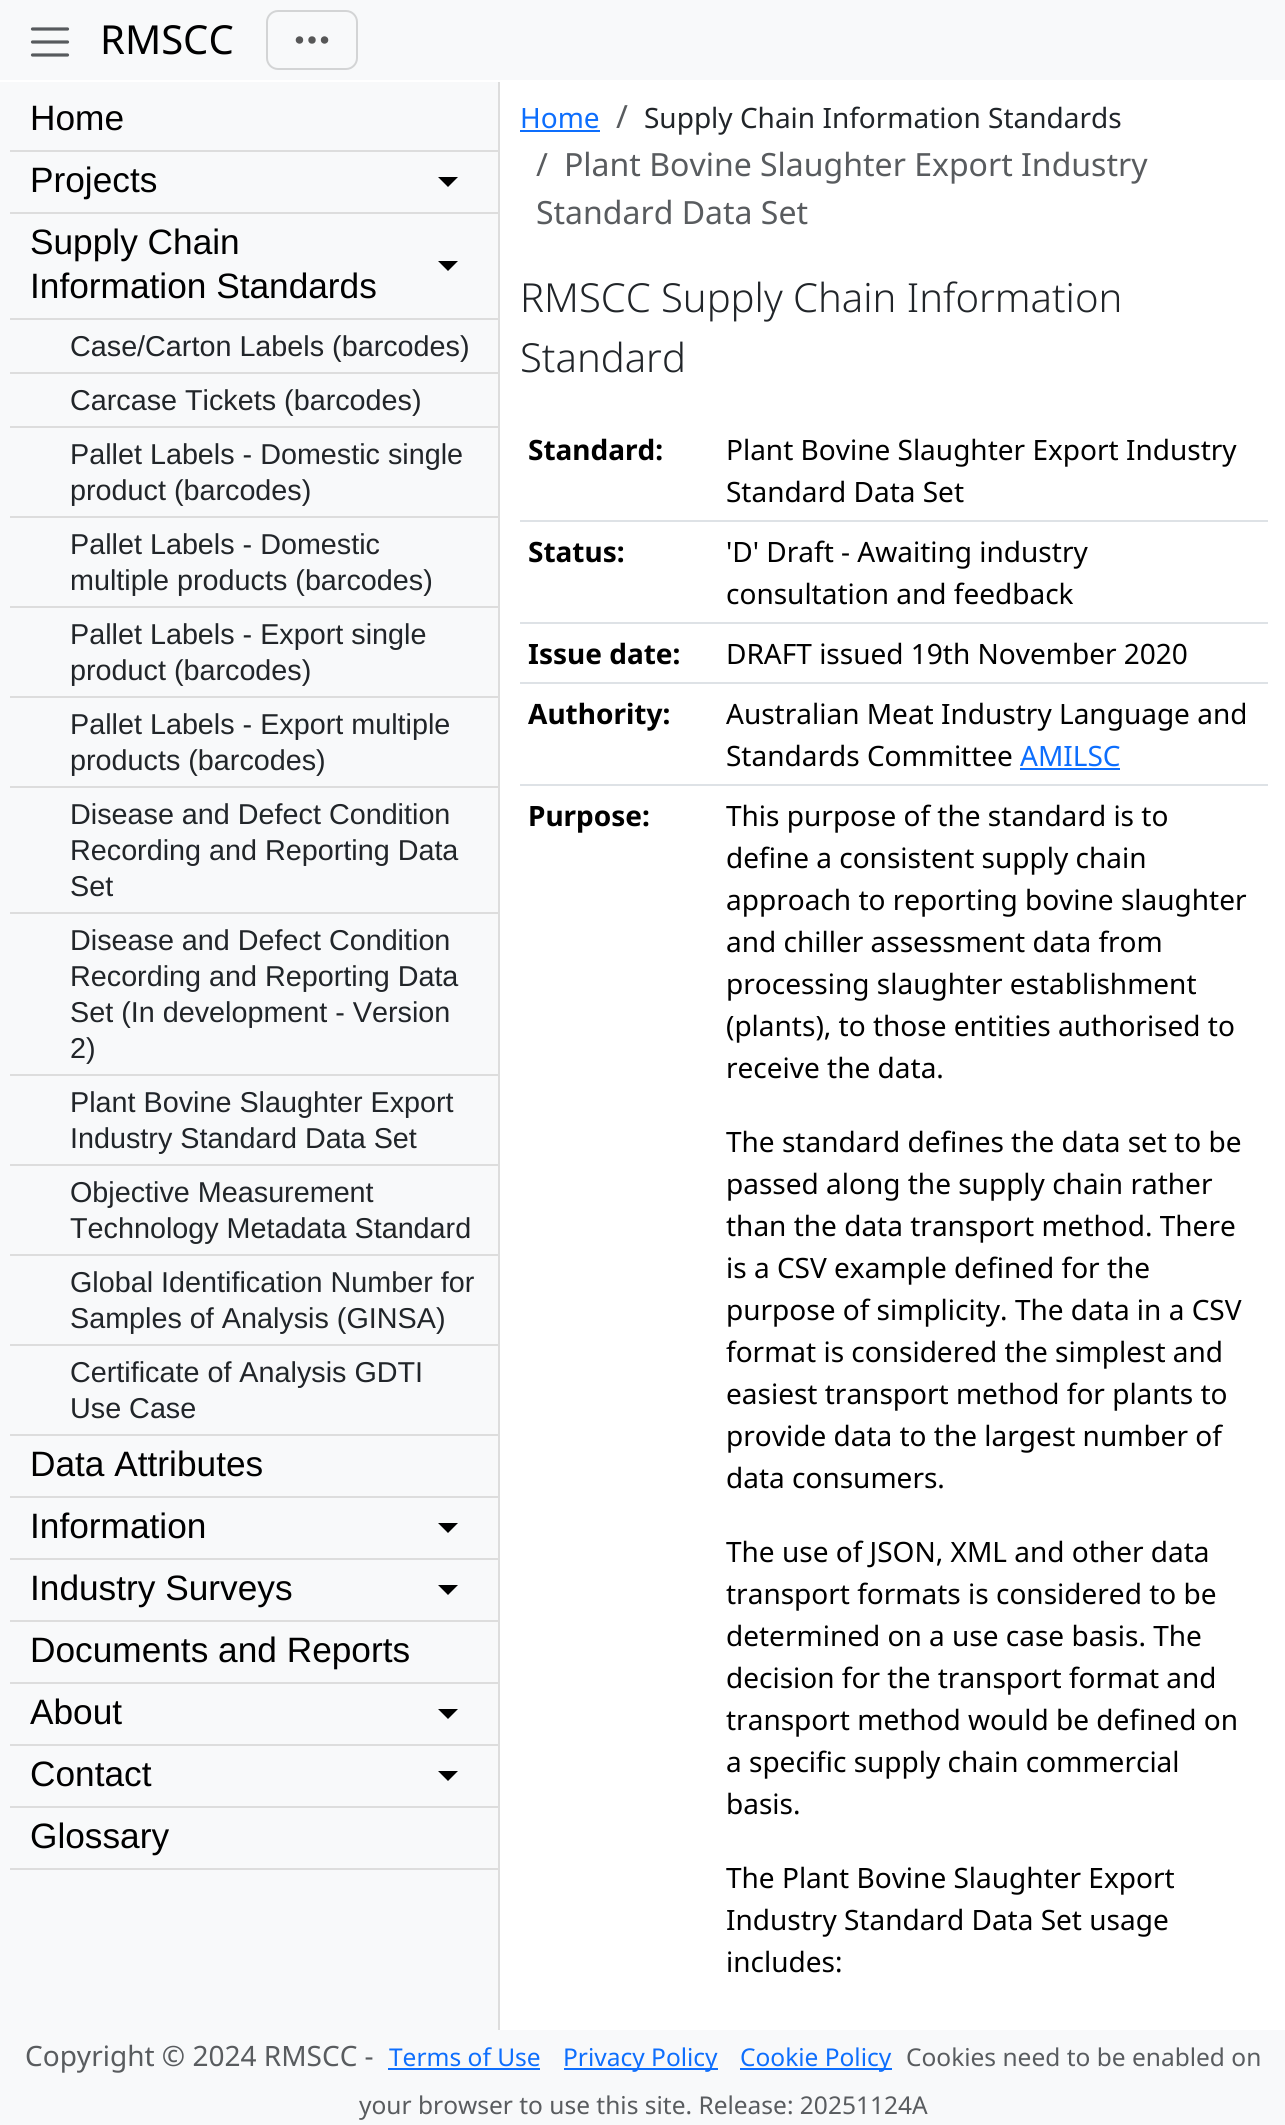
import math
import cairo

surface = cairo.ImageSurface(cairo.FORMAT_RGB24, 1285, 2125)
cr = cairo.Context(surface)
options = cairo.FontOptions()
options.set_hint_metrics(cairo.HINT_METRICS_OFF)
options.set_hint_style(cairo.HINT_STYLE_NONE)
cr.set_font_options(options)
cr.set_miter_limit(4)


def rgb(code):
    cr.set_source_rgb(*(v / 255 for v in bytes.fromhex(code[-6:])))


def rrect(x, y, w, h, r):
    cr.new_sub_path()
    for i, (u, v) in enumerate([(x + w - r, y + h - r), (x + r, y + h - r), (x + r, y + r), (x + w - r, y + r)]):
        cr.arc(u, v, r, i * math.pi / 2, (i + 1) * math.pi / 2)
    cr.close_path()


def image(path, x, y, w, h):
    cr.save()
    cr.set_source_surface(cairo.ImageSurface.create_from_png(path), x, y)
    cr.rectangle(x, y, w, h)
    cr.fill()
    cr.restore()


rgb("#ffffff")
cr.paint()
rgb("#f8f9fa")
cr.rectangle(0, 0, 1285, 80)
cr.fill()
cr.new_path()
cr.move_to(32.5, 29)
cr.line_to(67.5, 29)
cr.move_to(32.5, 42)
cr.line_to(67.5, 42)
cr.move_to(32.5, 55)
cr.line_to(67.5, 55)
rgb("#575a5d")
cr.set_line_width(3.2)
cr.set_line_cap(cairo.LINE_CAP_ROUND)
cr.stroke()
rrect(267, 11, 90, 58, 11)
rgb("#d3d4d5")
cr.set_line_width(2)
cr.set_line_cap(cairo.LINE_CAP_BUTT)
cr.stroke()
image("img/1.png", 295, 36, 34, 8)
for x, y, w, h, color in [
    (0, 82, 498, 1948, "#f8f9fa"),
    (498, 82, 2, 1948, "#dddddd"),
    (10, 150, 488, 2, "#dddddd"),
    (10, 212, 488, 2, "#dddddd"),
]:
    rgb(color)
    cr.rectangle(x, y, w, h)
    cr.fill()
rgb("#000000")
cr.new_path()
cr.move_to(438, 177)
cr.line_to(458, 177)
cr.line_to(448, 187)
cr.close_path()
cr.fill()
rgb("#dddddd")
cr.rectangle(10, 318, 488, 2)
cr.fill()
rgb("#000000")
cr.new_path()
cr.move_to(438, 261)
cr.line_to(458, 261)
cr.line_to(448, 271)
cr.close_path()
cr.fill()
for x, y, w, h, color in [
    (10, 372, 488, 2, "#dddddd"),
    (10, 426, 488, 2, "#dddddd"),
    (10, 516, 488, 2, "#dddddd"),
    (10, 606, 488, 2, "#dddddd"),
    (10, 696, 488, 2, "#dddddd"),
    (10, 786, 488, 2, "#dddddd"),
    (10, 912, 488, 2, "#dddddd"),
    (10, 1074, 488, 2, "#dddddd"),
    (10, 1164, 488, 2, "#dddddd"),
    (10, 1254, 488, 2, "#dddddd"),
    (10, 1344, 488, 2, "#dddddd"),
    (10, 1434, 488, 2, "#dddddd"),
    (10, 1496, 488, 2, "#dddddd"),
    (10, 1558, 488, 2, "#dddddd"),
]:
    rgb(color)
    cr.rectangle(x, y, w, h)
    cr.fill()
rgb("#000000")
cr.new_path()
cr.move_to(438, 1523)
cr.line_to(458, 1523)
cr.line_to(448, 1533)
cr.close_path()
cr.fill()
rgb("#dddddd")
cr.rectangle(10, 1620, 488, 2)
cr.fill()
rgb("#000000")
cr.new_path()
cr.move_to(438, 1585)
cr.line_to(458, 1585)
cr.line_to(448, 1595)
cr.close_path()
cr.fill()
rgb("#dddddd")
cr.rectangle(10, 1682, 488, 2)
cr.fill()
cr.rectangle(10, 1744, 488, 2)
cr.fill()
rgb("#000000")
cr.new_path()
cr.move_to(438, 1709)
cr.line_to(458, 1709)
cr.line_to(448, 1719)
cr.close_path()
cr.fill()
rgb("#dddddd")
cr.rectangle(10, 1806, 488, 2)
cr.fill()
rgb("#000000")
cr.new_path()
cr.move_to(438, 1771)
cr.line_to(458, 1771)
cr.line_to(448, 1781)
cr.close_path()
cr.fill()
for x, y, w, h, color in [
    (10, 1868, 488, 2, "#dddddd"),
    (520, 130, 80, 2, "#0d6efd"),
    (520, 520, 748, 2, "#dee2e6"),
    (520, 622, 748, 2, "#dee2e6"),
    (520, 682, 748, 2, "#dee2e6"),
    (520, 784, 748, 2, "#dee2e6"),
    (1020, 768, 100, 2, "#0d6efd"),
    (0, 2030, 1285, 95, "#f8f9fa"),
    (388, 2068, 152, 2, "#0d6efd"),
    (564, 2068, 154, 2, "#0d6efd"),
    (740, 2068, 152, 2, "#0d6efd"),
]:
    rgb(color)
    cr.rectangle(x, y, w, h)
    cr.fill()
cr.select_font_face("Noto Sans")
cr.set_font_size(40)
rgb("#000000")
cr.move_to(100, 54)
cr.show_text("RMSCC")
cr.select_font_face("Liberation Sans")
cr.set_font_size(35.25)
for x, y, s in [
    (30, 130, "Home"),
    (30, 192, "Projects"),
    (30, 254, "Supply Chain"),
    (30, 298, "Information Standards"),
]:
    cr.move_to(x, y)
    cr.show_text(s)
cr.set_font_size(28.75)
rgb("#212529")
for x, y, s in [
    (70, 356, "Case/Carton Labels (barcodes)"),
    (70, 410, "Carcase Tickets (barcodes)"),
    (70, 464, "Pallet Labels - Domestic single"),
    (70, 500, "product (barcodes)"),
    (70, 554, "Pallet Labels - Domestic"),
    (70, 590, "multiple products (barcodes)"),
    (70, 644, "Pallet Labels - Export single"),
    (70, 680, "product (barcodes)"),
    (70, 734, "Pallet Labels - Export multiple"),
    (70, 770, "products (barcodes)"),
    (70, 824, "Disease and Defect Condition"),
    (70, 860, "Recording and Reporting Data"),
    (70, 896, "Set"),
    (70, 950, "Disease and Defect Condition"),
    (70, 986, "Recording and Reporting Data"),
    (70, 1022, "Set (In development - Version"),
    (70, 1058, "2)"),
    (70, 1112, "Plant Bovine Slaughter Export"),
    (70, 1148, "Industry Standard Data Set"),
    (70, 1202, "Objective Measurement"),
    (70, 1238, "Technology Metadata Standard"),
    (70, 1292, "Global Identification Number for"),
    (70, 1328, "Samples of Analysis (GINSA)"),
    (70, 1382, "Certificate of Analysis GDTI"),
    (70, 1418, "Use Case"),
]:
    cr.move_to(x, y)
    cr.show_text(s)
cr.set_font_size(35.25)
rgb("#000000")
for x, y, s in [
    (30, 1476, "Data Attributes"),
    (30, 1538, "Information"),
    (30, 1600, "Industry Surveys"),
    (30, 1662, "Documents and Reports"),
    (30, 1724, "About"),
    (30, 1786, "Contact"),
    (30, 1848, "Glossary"),
]:
    cr.move_to(x, y)
    cr.show_text(s)
cr.select_font_face("Noto Sans")
cr.set_font_size(28)
rgb("#0d6efd")
cr.move_to(520, 128)
cr.show_text("Home")
cr.set_font_size(32)
rgb("#595c5f")
cr.move_to(616, 128)
cr.show_text("/")
cr.set_font_size(28)
rgb("#212529")
cr.move_to(644, 128)
cr.show_text("Supply Chain Information Standards")
cr.set_font_size(32)
rgb("#595c5f")
for x, y, s in [
    (536, 176, "/"),
    (564, 176, "Plant Bovine Slaughter Export Industry"),
    (536, 224, "Standard Data Set"),
]:
    cr.move_to(x, y)
    cr.show_text(s)
cr.select_font_face("Noto Sans Light")
cr.set_font_size(40)
rgb("#212529")
cr.move_to(520, 312)
cr.show_text("RMSCC Supply Chain Information")
cr.move_to(520, 372)
cr.show_text("Standard")
cr.select_font_face("Noto Sans", cairo.FONT_SLANT_NORMAL, cairo.FONT_WEIGHT_BOLD)
cr.set_font_size(28)
rgb("#000000")
cr.move_to(528, 460)
cr.show_text("Standard:")
cr.select_font_face("Noto Sans")
cr.move_to(726, 460)
cr.show_text("Plant Bovine Slaughter Export Industry")
cr.move_to(726, 502)
cr.show_text("Standard Data Set")
cr.select_font_face("Noto Sans", cairo.FONT_SLANT_NORMAL, cairo.FONT_WEIGHT_BOLD)
cr.move_to(528, 562)
cr.show_text("Status:")
cr.select_font_face("Noto Sans")
cr.move_to(726, 562)
cr.show_text("'D' Draft - Awaiting industry")
cr.move_to(726, 604)
cr.show_text("consultation and feedback")
cr.select_font_face("Noto Sans", cairo.FONT_SLANT_NORMAL, cairo.FONT_WEIGHT_BOLD)
cr.move_to(528, 664)
cr.show_text("Issue date:")
cr.select_font_face("Noto Sans")
cr.move_to(726, 664)
cr.show_text("DRAFT issued 19th November 2020")
cr.select_font_face("Noto Sans", cairo.FONT_SLANT_NORMAL, cairo.FONT_WEIGHT_BOLD)
cr.move_to(528, 724)
cr.show_text("Authority:")
cr.select_font_face("Noto Sans")
cr.move_to(726, 724)
cr.show_text("Australian Meat Industry Language and")
cr.move_to(726, 766)
cr.show_text("Standards Committee")
rgb("#0d6efd")
cr.move_to(1020, 766)
cr.show_text("AMILSC")
cr.select_font_face("Noto Sans", cairo.FONT_SLANT_NORMAL, cairo.FONT_WEIGHT_BOLD)
rgb("#000000")
cr.move_to(528, 826)
cr.show_text("Purpose:")
cr.select_font_face("Noto Sans")
for x, y, s in [
    (726, 826, "This purpose of the standard is to"),
    (726, 868, "define a consistent supply chain"),
    (726, 910, "approach to reporting bovine slaughter"),
    (726, 952, "and chiller assessment data from"),
    (726, 994, "processing slaughter establishment"),
    (726, 1036, "(plants), to those entities authorised to"),
    (726, 1078, "receive the data."),
    (726, 1152, "The standard defines the data set to be"),
    (726, 1194, "passed along the supply chain rather"),
    (726, 1236, "than the data transport method. There"),
    (726, 1278, "is a CSV example defined for the"),
    (726, 1320, "purpose of simplicity. The data in a CSV"),
    (726, 1362, "format is considered the simplest and"),
    (726, 1404, "easiest transport method for plants to"),
    (726, 1446, "provide data to the largest number of"),
    (726, 1488, "data consumers."),
    (726, 1562, "The use of JSON, XML and other data"),
    (726, 1604, "transport formats is considered to be"),
    (726, 1646, "determined on a use case basis. The"),
    (726, 1688, "decision for the transport format and"),
    (726, 1730, "transport method would be defined on"),
    (726, 1772, "a specific supply chain commercial"),
    (726, 1814, "basis."),
    (726, 1888, "The Plant Bovine Slaughter Export"),
    (726, 1930, "Industry Standard Data Set usage"),
    (726, 1972, "includes:"),
]:
    cr.move_to(x, y)
    cr.show_text(s)
rgb("#595c5f")
cr.move_to(25, 2066)
cr.show_text("Copyright © 2024 RMSCC -")
cr.set_font_size(24.5)
rgb("#0d6efd")
for x, y, s in [
    (389, 2066, "Terms of Use"),
    (563, 2066, "Privacy Policy"),
    (740, 2066, "Cookie Policy"),
]:
    cr.move_to(x, y)
    cr.show_text(s)
rgb("#595c5f")
cr.move_to(906, 2066)
cr.show_text("Cookies need to be enabled on")
cr.move_to(359, 2114)
cr.show_text("your browser to use this site. Release: 20251124A")
surface.write_to_png("page.png")
